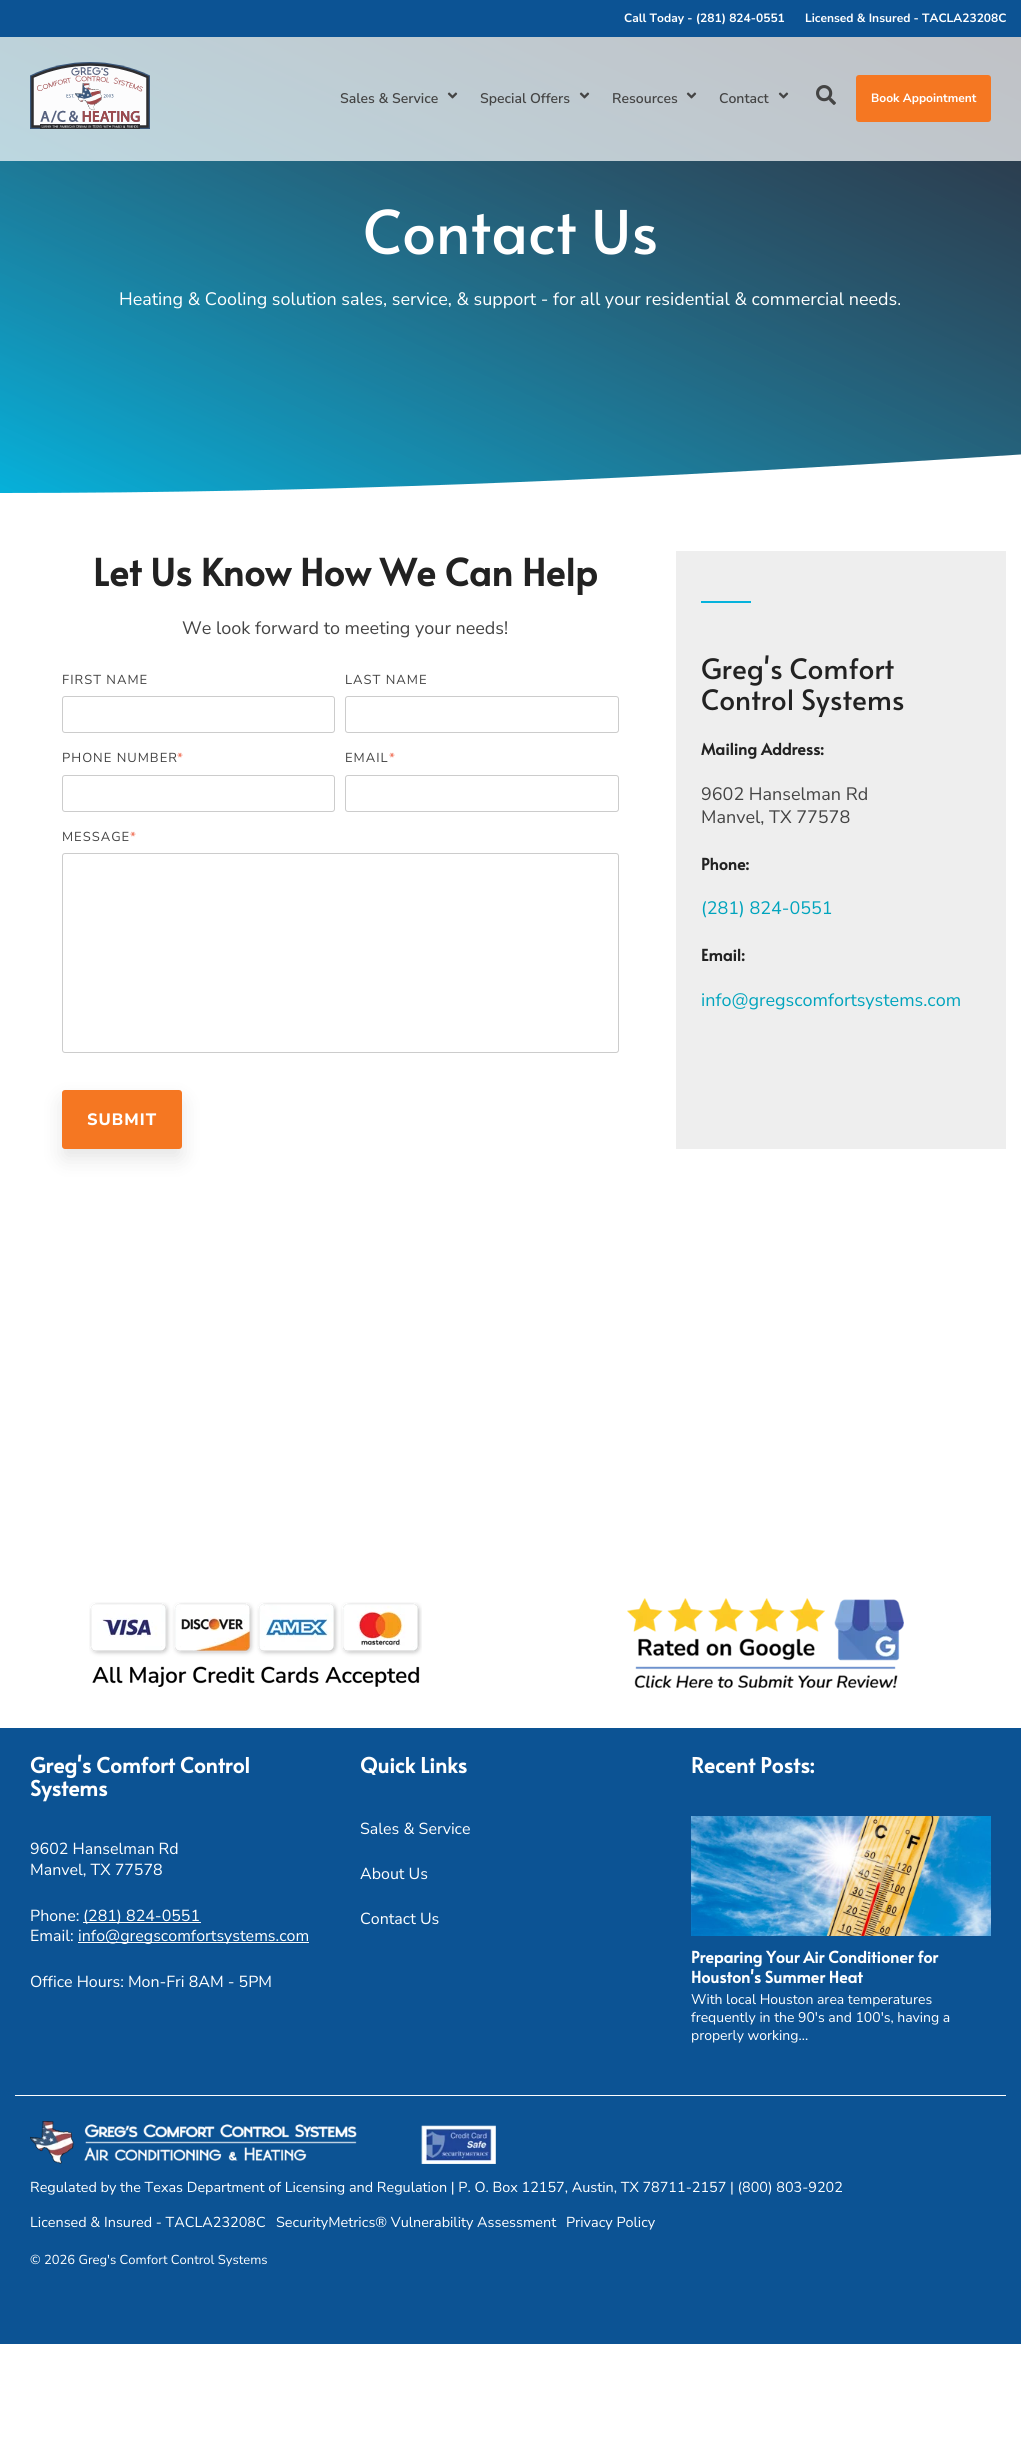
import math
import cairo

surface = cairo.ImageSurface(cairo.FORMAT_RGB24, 1021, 2438)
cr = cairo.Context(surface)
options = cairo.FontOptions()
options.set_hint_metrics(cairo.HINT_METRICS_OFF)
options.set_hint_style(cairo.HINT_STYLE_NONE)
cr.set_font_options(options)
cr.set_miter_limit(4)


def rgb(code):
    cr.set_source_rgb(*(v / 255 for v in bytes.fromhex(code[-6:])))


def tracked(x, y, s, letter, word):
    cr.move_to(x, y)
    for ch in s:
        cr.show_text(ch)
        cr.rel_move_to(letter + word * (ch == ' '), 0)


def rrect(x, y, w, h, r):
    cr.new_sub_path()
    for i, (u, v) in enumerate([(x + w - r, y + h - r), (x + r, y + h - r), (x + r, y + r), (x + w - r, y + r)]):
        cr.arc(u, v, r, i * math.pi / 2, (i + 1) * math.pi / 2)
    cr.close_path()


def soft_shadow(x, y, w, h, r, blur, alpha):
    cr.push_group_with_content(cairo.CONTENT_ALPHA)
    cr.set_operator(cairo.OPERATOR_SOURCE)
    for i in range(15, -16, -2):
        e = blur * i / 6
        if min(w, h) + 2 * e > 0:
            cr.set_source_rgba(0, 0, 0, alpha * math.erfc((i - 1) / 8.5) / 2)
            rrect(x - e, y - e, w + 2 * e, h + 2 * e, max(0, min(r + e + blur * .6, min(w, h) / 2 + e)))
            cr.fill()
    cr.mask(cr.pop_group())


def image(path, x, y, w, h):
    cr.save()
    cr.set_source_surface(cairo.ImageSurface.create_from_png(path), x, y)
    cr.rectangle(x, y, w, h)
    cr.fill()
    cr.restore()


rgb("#ffffff")
cr.paint()
rgb("#0c5394")
cr.rectangle(0, 0, 1021, 37)
cr.fill()
gradient = cairo.LinearGradient(685, -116, 336, 654)
gradient.add_color_stop_rgba(0, 0.345, 0.388, 0.502, 1)
gradient.add_color_stop_rgba(1, 0.02, 0.698, 0.863, 1)
cr.set_source(gradient)
cr.rectangle(0, 37, 1021, 456)
cr.fill()
gradient = cairo.LinearGradient(685, -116, 336, 654)
gradient.add_color_stop_rgba(0, 0, 0, 0, 0.5)
gradient.add_color_stop_rgba(1, 0, 0, 0, 0)
cr.set_source(gradient)
cr.rectangle(0, 37, 1021, 456)
cr.fill()
cr.set_source_rgba(1, 1, 1, 0.7)
cr.rectangle(0, 37, 1021, 124)
cr.fill()
image("img/1.png", 30, 62, 120, 67)
image("img/2.png", 447, 92, 11, 7)
image("img/3.png", 579, 92, 11, 7)
image("img/4.png", 686, 92, 11, 7)
image("img/5.png", 778, 92, 11, 7)
image("img/6.png", 816, 85, 20, 20)
rgb("#f57722")
rrect(856, 75, 135, 47, 3)
cr.fill()
rgb("#ffffff")
cr.set_fill_rule(cairo.FILL_RULE_EVEN_ODD)
cr.new_path()
cr.move_to(0, 501)
cr.line_to(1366, 501)
cr.line_to(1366, 437)
cr.curve_to(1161, 437, 657, 493, 0, 493)
cr.close_path()
cr.fill()
rrect(62.5, 696.5, 272, 36, 2.5)
rgb("#cccccc")
cr.set_line_width(1)
cr.stroke()
rrect(345.5, 696.5, 273, 36, 2.5)
cr.stroke()
rrect(62.5, 775.5, 272, 36, 2.5)
cr.stroke()
rrect(345.5, 775.5, 273, 36, 2.5)
cr.stroke()
rrect(62.5, 853.5, 556, 199, 2.5)
cr.stroke()
rgb("#000000")
soft_shadow(62, 1100, 120, 59, 3, 10, 0.1)
rgb("#f57722")
rrect(62, 1090, 120, 59, 3)
cr.fill()
rgb("#eeeeee")
cr.rectangle(676, 551, 330, 598)
cr.fill()
rgb("#05b2dc")
cr.rectangle(701, 601, 50, 2)
cr.fill()
image("img/7.png", 89, 1602, 333, 85)
image("img/8.png", 627, 1598, 277, 90)
for x, y, w, h, color in [
    (0, 1728, 1021, 616, "#0c5394"),
    (83, 1922, 118, 1, "#ffffff"),
    (78, 1942, 231, 1, "#ffffff"),
]:
    rgb(color)
    cr.rectangle(x, y, w, h)
    cr.fill()
image("img/9.png", 691, 1816, 300, 120)
cr.rectangle(15, 2095, 991, 1)
cr.fill()
image("img/10.png", 30, 2121, 466, 43)
cr.select_font_face("Nunito Sans", cairo.FONT_SLANT_NORMAL, cairo.FONT_WEIGHT_BOLD)
cr.set_font_size(12)
cr.move_to(624, 22)
cr.show_text("Call Today - (281) 824-0551")
cr.move_to(805, 22)
cr.show_text("Licensed & Insured - TACLA23208C")
cr.select_font_face("Nunito Sans SemiBold")
cr.set_font_size(14)
rgb("#444444")
for x, y, s in [
    (340, 103, "Sales & Service"),
    (480, 103, "Special Offers"),
    (612, 103, "Resources"),
    (719, 103, "Contact"),
]:
    cr.move_to(x, y)
    cr.show_text(s)
cr.select_font_face("Nunito Sans", cairo.FONT_SLANT_NORMAL, cairo.FONT_WEIGHT_BOLD)
cr.set_font_size(12)
rgb("#ffffff")
cr.move_to(871, 102)
cr.show_text("Book Appointment")
cr.select_font_face("Alata")
cr.set_font_size(60)
cr.move_to(363, 254)
cr.show_text("Contact Us")
cr.select_font_face("Nunito Sans")
cr.set_font_size(18)
cr.move_to(119, 305)
cr.show_text("Heating & Cooling solution sales, service, & support - for all your residential & commercial needs.")
cr.select_font_face("Alata", cairo.FONT_SLANT_NORMAL, cairo.FONT_WEIGHT_BOLD)
cr.set_font_size(37)
rgb("#222222")
cr.move_to(93, 586)
cr.show_text("Let Us Know How We Can Help")
cr.select_font_face("Nunito Sans")
cr.set_font_size(18)
rgb("#444444")
cr.move_to(182, 634)
cr.show_text("We look forward to meeting your needs!")
cr.set_font_size(13)
for x, y, s in [
    (62, 684, "FIRST NAME"),
    (345, 684, "LAST NAME"),
    (62, 762, "PHONE NUMBER"),
]:
    tracked(x, y, s, 1, 0)
rgb("#ef6b51")
tracked(177, 762, "*", 1, 0)
rgb("#444444")
tracked(345, 762, "EMAIL", 1, 0)
rgb("#ef6b51")
tracked(389, 762, "*", 1, 0)
rgb("#444444")
tracked(62, 841, "MESSAGE", 1, 0)
rgb("#ef6b51")
tracked(130, 841, "*", 1, 0)
cr.select_font_face("Nunito Sans ExtraBold")
cr.set_font_size(16.5)
rgb("#ffffff")
tracked(87, 1125, "SUBMIT", 1, 0)
cr.select_font_face("Alata")
cr.set_font_size(28)
rgb("#222222")
cr.move_to(701, 679)
cr.show_text("Greg's Comfort")
cr.move_to(701, 710)
cr.show_text("Control Systems")
cr.select_font_face("Alata", cairo.FONT_SLANT_NORMAL, cairo.FONT_WEIGHT_BOLD)
cr.set_font_size(16)
cr.move_to(701, 755)
cr.show_text("Mailing Address:")
cr.select_font_face("Nunito Sans")
cr.set_font_size(18)
rgb("#444444")
cr.move_to(701, 800)
cr.show_text("9602 Hanselman Rd")
cr.move_to(701, 823)
cr.show_text("Manvel, TX 77578")
cr.select_font_face("Alata", cairo.FONT_SLANT_NORMAL, cairo.FONT_WEIGHT_BOLD)
cr.set_font_size(16)
rgb("#222222")
cr.move_to(701, 870)
cr.show_text("Phone:")
cr.select_font_face("Nunito Sans")
cr.set_font_size(18)
rgb("#00a4bd")
cr.move_to(701, 914)
cr.show_text("(281) 824-0551")
cr.select_font_face("Alata", cairo.FONT_SLANT_NORMAL, cairo.FONT_WEIGHT_BOLD)
cr.set_font_size(16)
rgb("#222222")
cr.move_to(701, 961)
cr.show_text("Email:")
cr.select_font_face("Nunito Sans")
cr.set_font_size(18)
rgb("#00a4bd")
cr.move_to(701, 1006)
cr.show_text("info@gregscomfortsystems.com")
cr.select_font_face("Alata", cairo.FONT_SLANT_NORMAL, cairo.FONT_WEIGHT_BOLD)
cr.set_font_size(21)
rgb("#ffffff")
cr.move_to(30, 1773)
cr.show_text("Greg's Comfort Control")
cr.move_to(30, 1796)
cr.show_text("Systems")
cr.select_font_face("Nunito Sans")
cr.set_font_size(16)
for x, y, s in [
    (30, 1854, "9602 Hanselman Rd"),
    (30, 1875, "Manvel, TX 77578"),
    (30, 1921, "Phone:"),
    (83, 1921, "(281) 824-0551"),
    (30, 1941, "Email:"),
    (78, 1941, "info@gregscomfortsystems.com"),
    (30, 1987, "Office Hours: Mon-Fri 8AM - 5PM"),
]:
    cr.move_to(x, y)
    cr.show_text(s)
cr.select_font_face("Alata", cairo.FONT_SLANT_NORMAL, cairo.FONT_WEIGHT_BOLD)
cr.set_font_size(21)
cr.move_to(360, 1773)
cr.show_text("Quick Links")
cr.select_font_face("Nunito Sans")
cr.set_font_size(16)
for x, y, s in [
    (360, 1834, "Sales & Service"),
    (360, 1879, "About Us"),
    (360, 1924, "Contact Us"),
]:
    cr.move_to(x, y)
    cr.show_text(s)
cr.select_font_face("Alata", cairo.FONT_SLANT_NORMAL, cairo.FONT_WEIGHT_BOLD)
cr.set_font_size(21)
cr.move_to(691, 1773)
cr.show_text("Recent Posts:")
cr.set_font_size(16)
cr.move_to(691, 1963)
cr.show_text("Preparing Your Air Conditioner for")
cr.move_to(691, 1983)
cr.show_text("Houston's Summer Heat")
cr.select_font_face("Nunito Sans")
cr.set_font_size(14)
for x, y, s in [
    (691, 2004, "With local Houston area temperatures"),
    (691, 2022, "frequently in the 90's and 100's, having a"),
    (691, 2040, "properly working..."),
]:
    cr.move_to(x, y)
    cr.show_text(s)
cr.set_font_size(14.4)
for x, y, s in [
    (30, 2192, "Regulated by the Texas Department of Licensing and Regulation | P. O. Box 12157, Austin, TX 78711-2157 | (800) 803-9202"),
    (30, 2227, "Licensed & Insured - TACLA23208C"),
    (276, 2227, "SecurityMetrics® Vulnerability Assessment"),
    (566, 2227, "Privacy Policy"),
]:
    cr.move_to(x, y)
    cr.show_text(s)
cr.set_font_size(13)
cr.move_to(30, 2264)
cr.show_text("© 2026 Greg's Comfort Control Systems")
surface.write_to_png("page.png")
